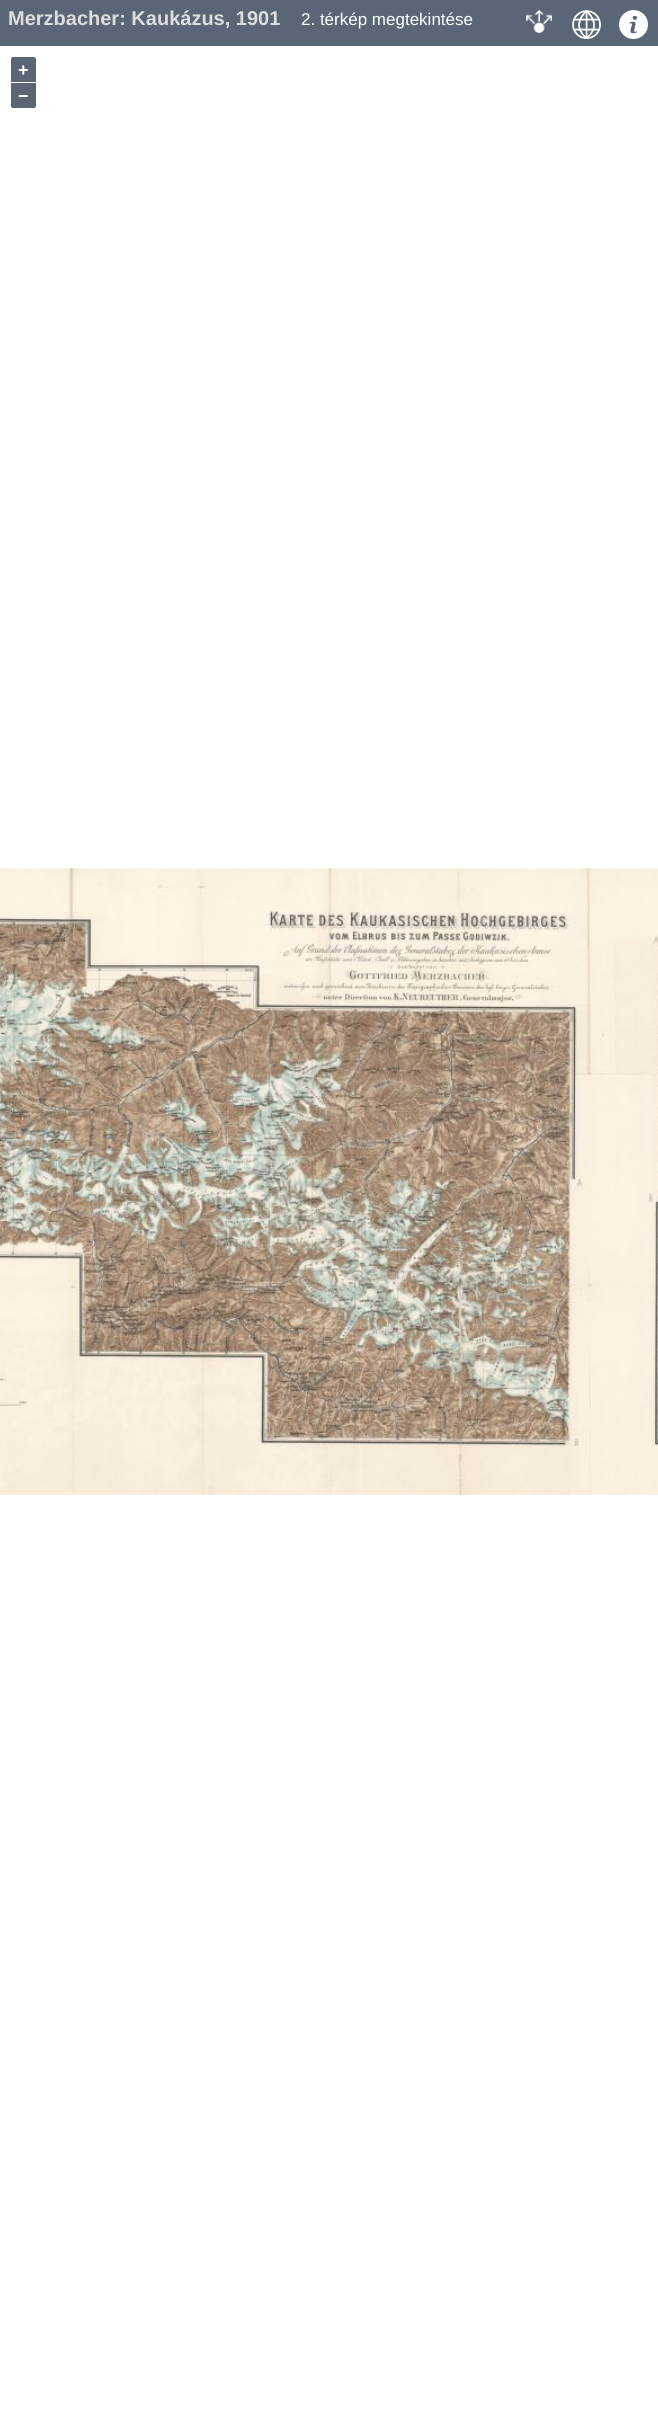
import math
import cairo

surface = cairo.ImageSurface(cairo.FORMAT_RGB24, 658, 2429)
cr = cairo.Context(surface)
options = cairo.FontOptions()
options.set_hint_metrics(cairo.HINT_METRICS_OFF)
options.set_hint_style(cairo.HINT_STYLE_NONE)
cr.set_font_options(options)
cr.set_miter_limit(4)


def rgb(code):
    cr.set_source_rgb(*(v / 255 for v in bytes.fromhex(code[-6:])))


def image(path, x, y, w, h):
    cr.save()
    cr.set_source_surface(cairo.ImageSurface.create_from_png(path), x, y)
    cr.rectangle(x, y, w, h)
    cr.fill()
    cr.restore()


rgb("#ffffff")
cr.paint()
rgb("#5a6675")
cr.rectangle(0, 0, 658, 46)
cr.fill()
image("img/1.png", 526, 10, 26, 23)
image("img/2.png", 572, 10, 29, 29)
image("img/3.png", 619, 10, 29, 29)
cr.new_path()
cr.move_to(13, 57)
cr.line_to(34, 57)
cr.curve_to(35, 57, 36, 58, 36, 59)
cr.line_to(36, 82)
cr.line_to(11, 82)
cr.line_to(11, 59)
cr.curve_to(11, 58, 12, 57, 13, 57)
cr.close_path()
cr.fill()
cr.new_path()
cr.move_to(11, 83)
cr.line_to(36, 83)
cr.line_to(36, 106)
cr.curve_to(36, 107, 35, 108, 34, 108)
cr.line_to(13, 108)
cr.curve_to(12, 108, 11, 107, 11, 106)
cr.close_path()
cr.fill()
image("img/4.png", 0, 868, 658, 627)
cr.select_font_face("Liberation Sans", cairo.FONT_SLANT_NORMAL, cairo.FONT_WEIGHT_BOLD)
cr.set_font_size(20)
rgb("#dddddd")
cr.move_to(8, 25)
cr.show_text("Merzbacher: Kaukázus, 1901")
cr.select_font_face("Liberation Sans")
cr.set_font_size(17)
rgb("#ffffff")
cr.move_to(301, 25)
cr.show_text("2. térkép megtekintése")
cr.select_font_face("Liberation Sans", cairo.FONT_SLANT_NORMAL, cairo.FONT_WEIGHT_BOLD)
cr.set_font_size(18)
cr.move_to(18, 76)
cr.show_text("+")
cr.move_to(18, 102)
cr.show_text("−")
surface.write_to_png("page.png")
